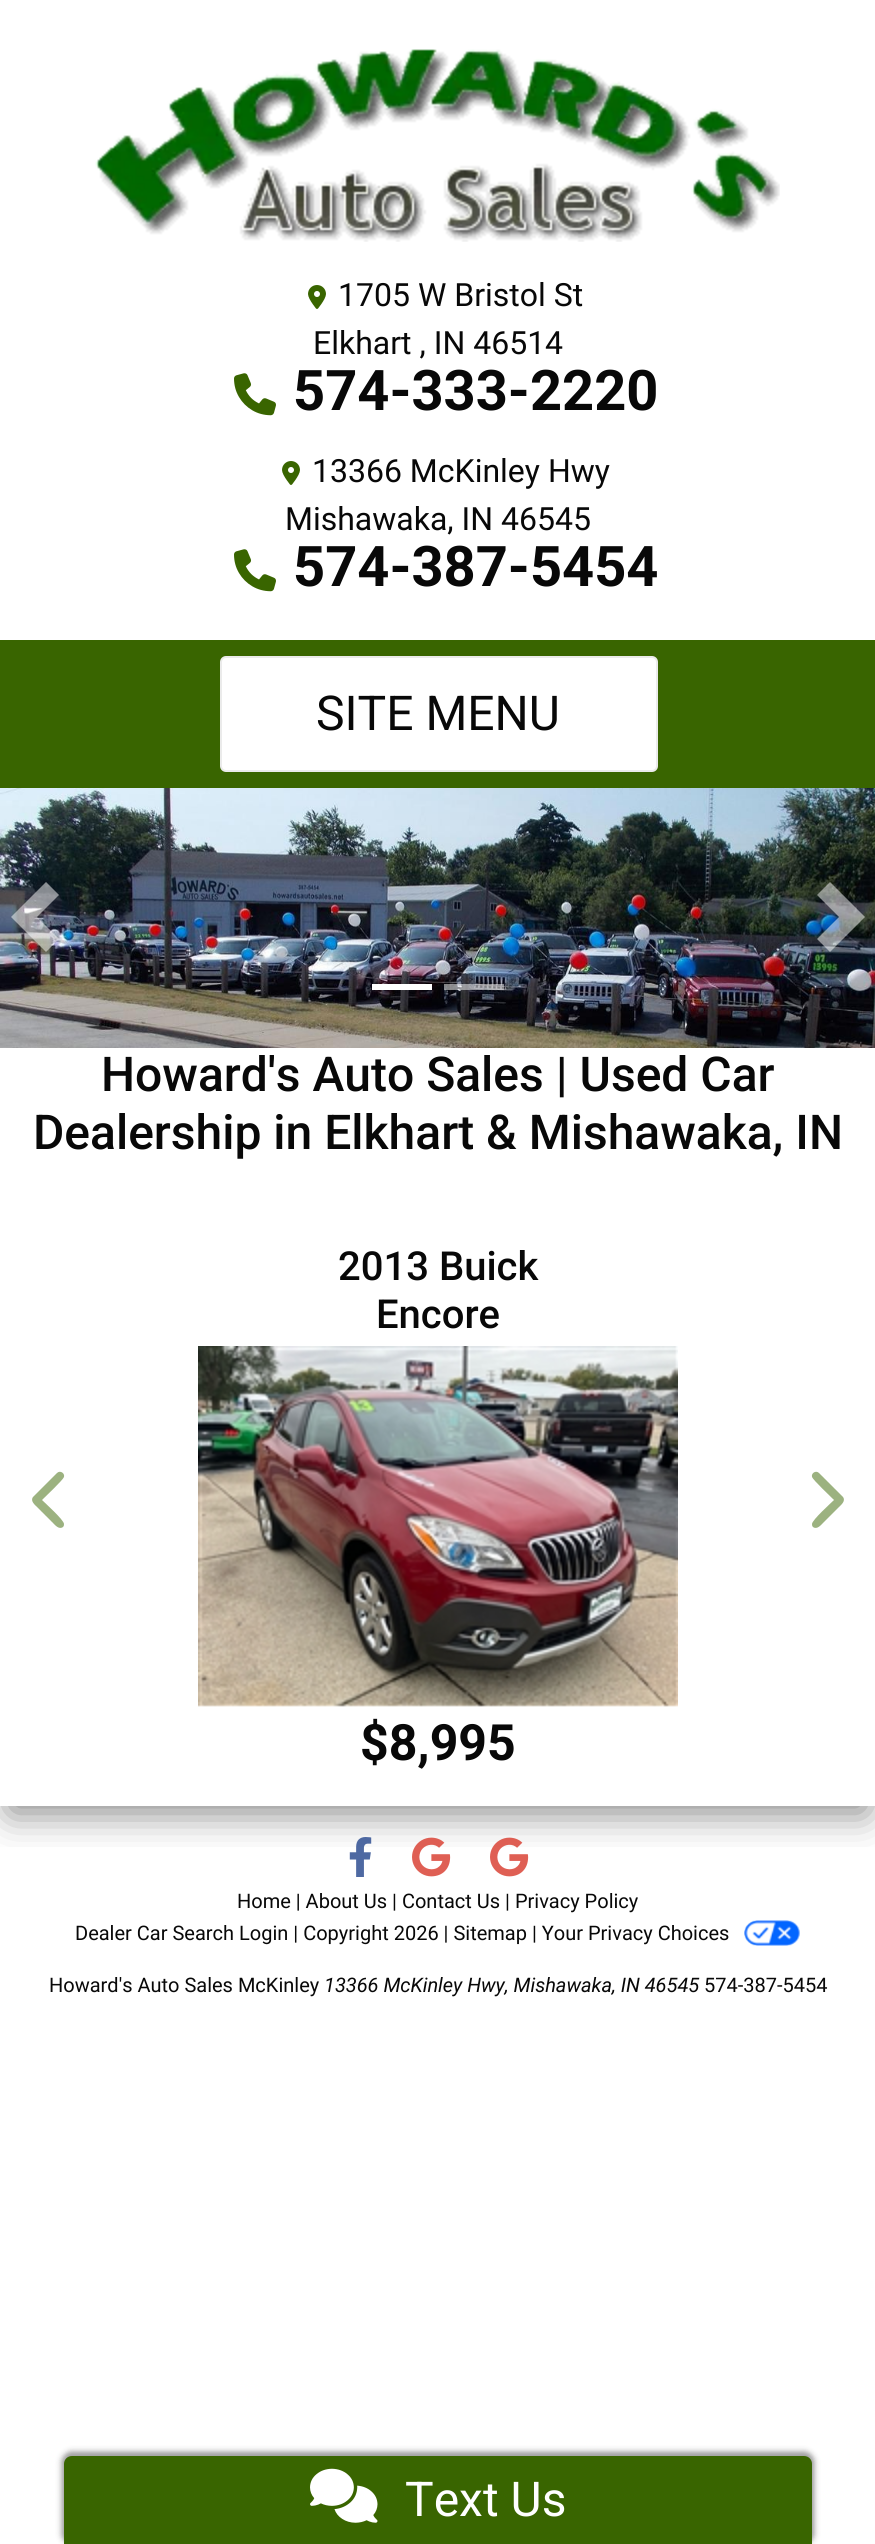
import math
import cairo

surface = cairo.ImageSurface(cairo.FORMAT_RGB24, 875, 2544)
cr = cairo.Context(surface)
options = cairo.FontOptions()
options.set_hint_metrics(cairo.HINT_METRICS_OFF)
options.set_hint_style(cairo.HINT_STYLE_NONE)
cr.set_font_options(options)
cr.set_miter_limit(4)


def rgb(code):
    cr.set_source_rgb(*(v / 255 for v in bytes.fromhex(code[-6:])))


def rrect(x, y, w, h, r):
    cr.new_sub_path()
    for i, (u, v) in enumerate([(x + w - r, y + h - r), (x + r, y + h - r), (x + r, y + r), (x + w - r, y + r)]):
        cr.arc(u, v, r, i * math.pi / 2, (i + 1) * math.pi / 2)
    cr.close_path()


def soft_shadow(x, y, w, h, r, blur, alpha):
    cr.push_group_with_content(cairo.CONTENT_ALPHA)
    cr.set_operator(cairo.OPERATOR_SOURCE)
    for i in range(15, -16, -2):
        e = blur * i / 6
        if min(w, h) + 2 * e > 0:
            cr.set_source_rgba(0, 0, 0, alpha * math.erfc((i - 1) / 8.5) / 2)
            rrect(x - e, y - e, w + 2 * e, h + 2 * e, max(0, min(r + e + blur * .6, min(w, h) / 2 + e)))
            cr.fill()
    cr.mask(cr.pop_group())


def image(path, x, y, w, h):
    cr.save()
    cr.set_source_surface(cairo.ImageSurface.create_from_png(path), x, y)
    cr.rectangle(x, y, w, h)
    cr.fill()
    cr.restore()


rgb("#ffffff")
cr.paint()
cr.save()
cr.rectangle(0, 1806, 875, 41)
cr.clip()
rgb("#000000")
soft_shadow(10, 26, 856, 1786, 0, 20, 0.5)
cr.restore()
image("img/1.png", 95, 49, 685, 193)
image("img/2.png", 308, 285, 18, 24)
image("img/3.png", 234, 373, 42, 43)
image("img/2.png", 282, 461, 18, 24)
image("img/3.png", 234, 549, 42, 43)
rgb("#396500")
cr.rectangle(0, 640, 875, 148)
cr.fill()
rgb("#ffffff")
rrect(221, 657, 436, 114, 5)
cr.fill_preserve()
rgb("#ebebeb")
cr.stroke()
image("img/4.png", 0, 788, 875, 260)
cr.set_source_rgba(1, 1, 1, 0.5)
cr.new_path()
cr.move_to(46, 882)
cr.line_to(11, 917)
cr.line_to(46, 952)
cr.line_to(59, 939)
cr.line_to(37, 917)
cr.line_to(59, 895)
cr.close_path()
cr.fill()
cr.new_path()
cr.move_to(830, 882)
cr.line_to(817, 895)
cr.line_to(839, 917)
cr.line_to(817, 939)
cr.line_to(830, 952)
cr.line_to(865, 917)
cr.close_path()
cr.fill()
rgb("#ffffff")
cr.rectangle(372, 984, 60, 6)
cr.fill()
cr.set_source_rgba(1, 1, 1, 0.5)
cr.rectangle(444, 984, 60, 6)
cr.fill()
rgb("#9cb280")
cr.new_path()
cr.move_to(33, 1497)
cr.curve_to(30, 1501, 35, 1505, 37, 1507)
cr.line_to(53, 1523)
cr.curve_to(55, 1525, 59, 1530, 63, 1527)
cr.curve_to(64, 1526, 64, 1525, 64, 1524)
cr.curve_to(64, 1520, 45, 1503, 42, 1500)
cr.curve_to(45, 1497, 63, 1480, 64, 1477)
cr.curve_to(65, 1473, 60, 1470, 57, 1473)
cr.close_path()
cr.fill()
image("img/5.png", 198, 1346, 480, 361)
cr.new_path()
cr.move_to(843, 1497)
cr.curve_to(846, 1501, 841, 1505, 839, 1507)
cr.line_to(823, 1523)
cr.curve_to(821, 1525, 817, 1530, 813, 1527)
cr.curve_to(812, 1526, 812, 1525, 812, 1524)
cr.curve_to(812, 1520, 831, 1503, 834, 1500)
cr.curve_to(831, 1497, 813, 1480, 812, 1477)
cr.curve_to(811, 1473, 816, 1470, 819, 1473)
cr.close_path()
cr.fill()
image("img/6.png", 349, 1837, 23, 40)
image("img/7.png", 412, 1837, 39, 40)
image("img/7.png", 490, 1837, 39, 40)
image("img/8.png", 744, 1920, 56, 26)
rgb("#000000")
soft_shadow(62, 2452, 752, 92, 10, 2, 0.25)
soft_shadow(60, 2450, 756, 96, 12, 3, 0.15)
rgb("#396500")
cr.new_path()
cr.move_to(72, 2456)
cr.line_to(804, 2456)
cr.curve_to(808.5, 2456, 812, 2459.5, 812, 2464)
cr.line_to(812, 2544)
cr.line_to(64, 2544)
cr.line_to(64, 2464)
cr.curve_to(64, 2459.5, 67.5, 2456, 72, 2456)
cr.close_path()
cr.fill()
image("img/9.png", 310, 2468, 68, 55)
cr.select_font_face("Roboto")
cr.set_font_size(32)
rgb("#080808")
cr.move_to(338, 306)
cr.show_text("1705 W Bristol St")
cr.move_to(313, 354)
cr.show_text("Elkhart , IN 46514")
cr.select_font_face("Roboto", cairo.FONT_SLANT_NORMAL, cairo.FONT_WEIGHT_BOLD)
cr.set_font_size(56)
cr.move_to(293, 410)
cr.show_text("574-333-2220")
cr.select_font_face("Roboto")
cr.set_font_size(32)
cr.move_to(312, 482)
cr.show_text("13366 McKinley Hwy")
cr.move_to(285, 530)
cr.show_text("Mishawaka, IN 46545")
cr.select_font_face("Roboto", cairo.FONT_SLANT_NORMAL, cairo.FONT_WEIGHT_BOLD)
cr.set_font_size(56)
cr.move_to(293, 586)
cr.show_text("574-387-5454")
cr.select_font_face("Roboto")
cr.set_font_size(48)
cr.move_to(316, 730)
cr.show_text("SITE MENU")
cr.select_font_face("Roboto Medium")
cr.move_to(101, 1091)
cr.show_text("Howard's Auto Sales | Used Car")
cr.move_to(33, 1149)
cr.show_text("Dealership in Elkhart & Mishawaka, IN")
cr.set_font_size(40)
cr.move_to(338, 1280)
cr.show_text("2013 Buick")
cr.move_to(376, 1328)
cr.show_text("Encore")
cr.select_font_face("Roboto", cairo.FONT_SLANT_NORMAL, cairo.FONT_WEIGHT_BOLD)
cr.set_font_size(50)
cr.move_to(360, 1760)
cr.show_text("$8,995")
cr.select_font_face("Roboto")
cr.set_font_size(20)
for x, y, s in [
    (237, 1908, "Home | About Us | Contact Us | Privacy Policy"),
    (75, 1940, "Dealer Car Search Login | Copyright 2026 | Sitemap | Your Privacy Choices"),
    (49, 1992, "Howard's Auto Sales McKinley"),
]:
    cr.move_to(x, y)
    cr.show_text(s)
cr.select_font_face("Roboto", cairo.FONT_SLANT_ITALIC)
cr.move_to(324, 1992)
cr.show_text("13366 McKinley Hwy, Mishawaka, IN 46545")
cr.select_font_face("Roboto")
cr.move_to(704, 1992)
cr.show_text("574-387-5454")
cr.set_font_size(48)
rgb("#ffffff")
cr.move_to(405, 2516)
cr.show_text("Text Us")
surface.write_to_png("page.png")
